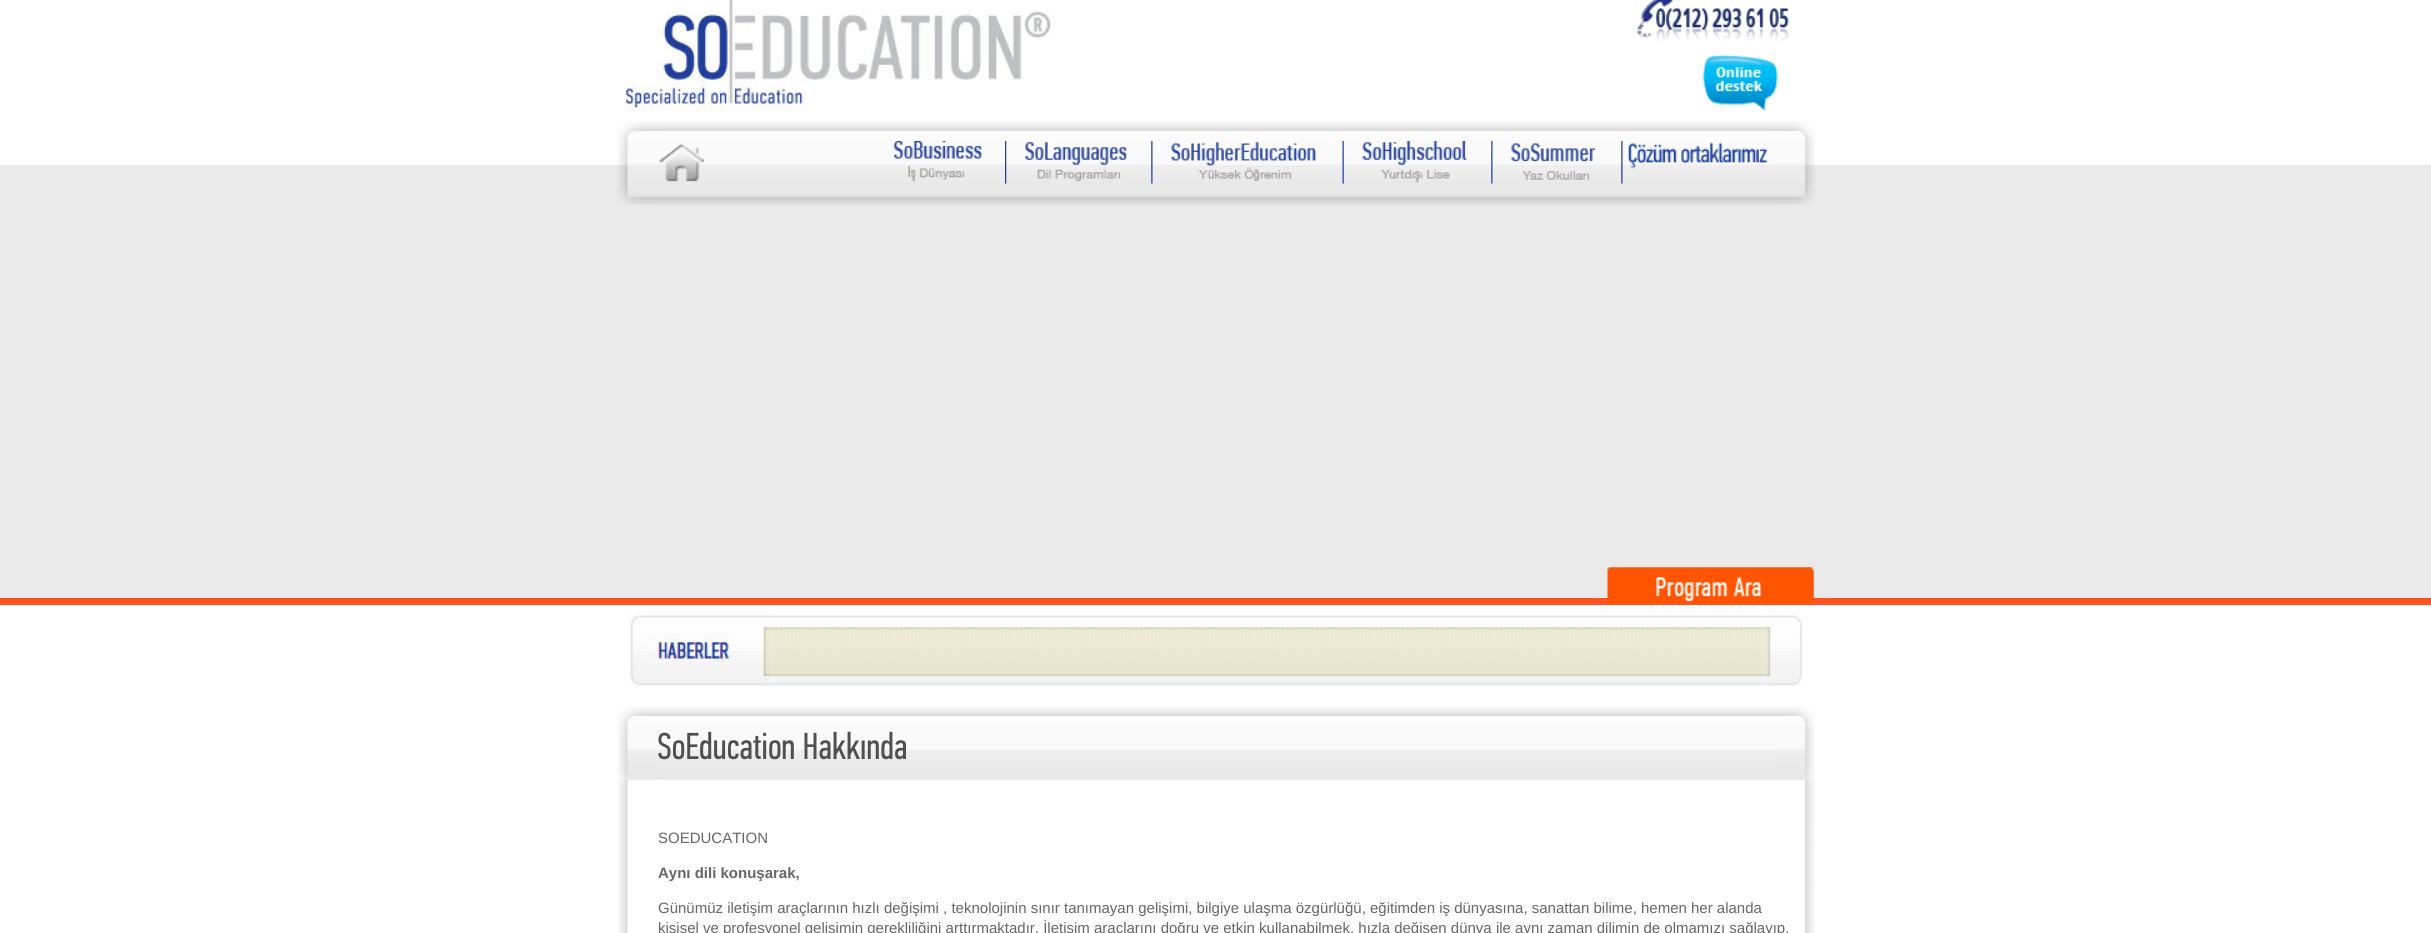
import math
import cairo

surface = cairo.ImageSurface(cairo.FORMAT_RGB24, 2431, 933)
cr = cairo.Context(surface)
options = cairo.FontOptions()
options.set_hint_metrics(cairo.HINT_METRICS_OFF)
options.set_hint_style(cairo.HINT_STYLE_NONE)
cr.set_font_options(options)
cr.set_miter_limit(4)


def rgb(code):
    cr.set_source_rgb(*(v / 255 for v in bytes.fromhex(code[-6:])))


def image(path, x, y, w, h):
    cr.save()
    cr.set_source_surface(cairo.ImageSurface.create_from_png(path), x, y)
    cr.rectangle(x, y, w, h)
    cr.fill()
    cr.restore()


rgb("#ffffff")
cr.paint()
image("img/1.png", 626, 0, 426, 111)
image("img/2.png", 1637, 0, 152, 41)
image("img/3.png", 1702, 54, 76, 57)
rgb("#eaeaea")
cr.rectangle(0, 165, 2431, 433)
cr.fill()
image("img/5.png", 657, 121, 1118, 84)
image("img/4.png", 617, 121, 41, 84)
image("img/6.png", 658, 143, 46, 39)
image("img/7.png", 893, 141, 89, 40)
image("img/8.png", 1005, 141, 2, 43)
image("img/9.png", 1025, 142, 102, 39)
image("img/10.png", 1151, 141, 2, 43)
image("img/11.png", 1171, 142, 146, 39)
image("img/12.png", 1342, 141, 2, 43)
image("img/13.png", 1362, 141, 105, 42)
image("img/10.png", 1491, 141, 2, 43)
image("img/14.png", 1511, 143, 84, 37)
image("img/10.png", 1621, 141, 2, 43)
image("img/15.png", 1628, 142, 140, 27)
image("img/16.png", 1775, 121, 40, 84)
rgb("#ff5422")
cr.rectangle(0, 598, 2431, 7)
cr.fill()
image("img/17.png", 1607, 567, 207, 37)
image("img/19.png", 771, 615, 993, 71)
image("img/18.png", 629, 613, 143, 73)
image("img/20.png", 1764, 615, 39, 71)
image("img/22.png", 657, 706, 1118, 74)
image("img/24.png", 617, 779, 11, 154)
image("img/21.png", 617, 706, 41, 74)
image("img/25.png", 1805, 779, 10, 154)
image("img/23.png", 1775, 706, 40, 74)
cr.select_font_face("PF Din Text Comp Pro")
cr.set_font_size(37.5)
rgb("#505050")
cr.move_to(657, 759)
cr.show_text("SoEducation Hakkında")
cr.select_font_face("Liberation Sans")
cr.set_font_size(15)
rgb("#666666")
cr.move_to(658, 843)
cr.show_text("SOEDUCATION")
cr.select_font_face("Liberation Sans", cairo.FONT_SLANT_NORMAL, cairo.FONT_WEIGHT_BOLD)
cr.move_to(658, 878)
cr.show_text("Aynı dili konuşarak,")
cr.select_font_face("Liberation Sans")
cr.move_to(658, 913)
cr.show_text("Günümüz iletişim araçlarının hızlı değişimi , teknolojinin sınır tanımayan gelişimi, bilgiye ulaşma özgürlüğü, eğitimden iş dünyasına, sanattan bilime, hemen her alanda")
cr.move_to(658, 933)
cr.show_text("kişisel ve profesyonel gelişimin gerekliliğini arttırmaktadır. İletişim araçlarını doğru ve etkin kullanabilmek, hızla değişen dünya ile aynı zaman dilimin de olmamızı sağlayıp,")
surface.write_to_png("page.png")
